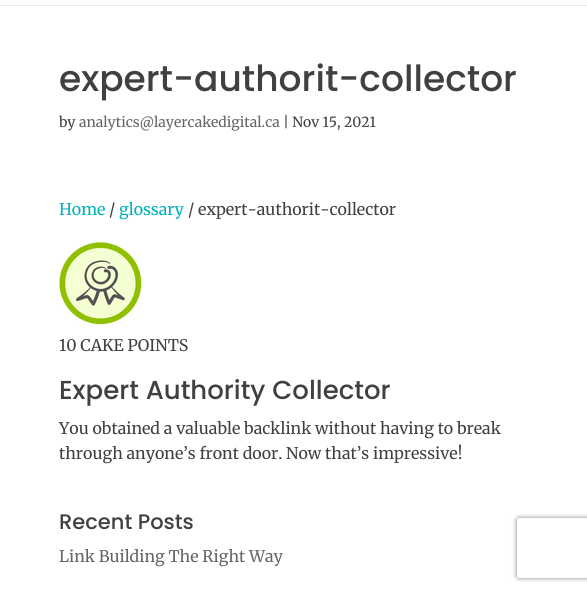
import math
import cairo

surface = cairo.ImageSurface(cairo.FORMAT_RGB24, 587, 592)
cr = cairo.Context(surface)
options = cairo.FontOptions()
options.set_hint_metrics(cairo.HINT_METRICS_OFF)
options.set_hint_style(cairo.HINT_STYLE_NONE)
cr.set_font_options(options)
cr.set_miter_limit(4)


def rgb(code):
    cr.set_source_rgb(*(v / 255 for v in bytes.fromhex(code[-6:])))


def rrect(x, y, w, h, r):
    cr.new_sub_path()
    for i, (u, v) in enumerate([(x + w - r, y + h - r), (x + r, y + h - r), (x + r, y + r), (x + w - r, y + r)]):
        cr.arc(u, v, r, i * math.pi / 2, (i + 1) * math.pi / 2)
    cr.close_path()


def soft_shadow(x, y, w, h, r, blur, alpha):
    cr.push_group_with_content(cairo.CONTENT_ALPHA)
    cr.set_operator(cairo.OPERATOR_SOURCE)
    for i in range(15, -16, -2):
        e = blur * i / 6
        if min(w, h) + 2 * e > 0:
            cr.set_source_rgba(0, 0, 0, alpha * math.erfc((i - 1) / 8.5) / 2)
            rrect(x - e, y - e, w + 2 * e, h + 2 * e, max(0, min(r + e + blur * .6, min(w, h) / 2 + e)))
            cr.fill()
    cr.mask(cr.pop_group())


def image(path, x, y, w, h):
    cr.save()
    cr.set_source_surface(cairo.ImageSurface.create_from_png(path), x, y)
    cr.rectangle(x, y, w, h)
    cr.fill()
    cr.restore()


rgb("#ffffff")
cr.paint()
rgb("#e6e6e6")
cr.rectangle(0, 5, 587, 1)
cr.fill()
image("img/1.png", 59, 242, 83, 83)
cr.save()
cr.set_fill_rule(cairo.FILL_RULE_EVEN_ODD)
cr.new_path()
cr.move_to(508, 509)
cr.line_to(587, 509)
cr.line_to(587, 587)
cr.line_to(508, 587)
cr.close_path()
cr.move_to(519, 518)
cr.line_to(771, 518)
cr.curve_to(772, 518, 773, 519, 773, 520)
cr.line_to(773, 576)
cr.curve_to(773, 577, 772, 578, 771, 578)
cr.line_to(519, 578)
cr.curve_to(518, 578, 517, 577, 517, 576)
cr.line_to(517, 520)
cr.curve_to(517, 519, 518, 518, 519, 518)
cr.close_path()
cr.clip()
rgb("#808080")
soft_shadow(517, 518, 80, 60, 2, 2.5, 1)
cr.restore()
cr.select_font_face("Poppins Medium")
cr.set_font_size(36)
rgb("#404040")
cr.move_to(59, 91)
cr.show_text("expert-authorit-collector")
cr.select_font_face("Merriweather Light")
cr.set_font_size(14)
cr.move_to(59, 127)
cr.show_text("by")
rgb("#666666")
cr.move_to(79, 127)
cr.show_text("analytics@layercakedigital.ca")
rgb("#404040")
cr.move_to(283, 127)
cr.show_text("| Nov 15, 2021")
cr.set_font_size(16)
rgb("#00b0bb")
cr.move_to(59, 215)
cr.show_text("Home")
rgb("#404040")
cr.move_to(109, 215)
cr.show_text("/")
rgb("#00b0bb")
cr.move_to(119, 215)
cr.show_text("glossary")
rgb("#404040")
cr.move_to(188, 215)
cr.show_text("/ expert-authorit-collector")
cr.move_to(59, 351)
cr.show_text("10 CAKE POINTS")
cr.select_font_face("Poppins Medium")
cr.set_font_size(26)
cr.move_to(59, 399)
cr.show_text("Expert Authority Collector")
cr.select_font_face("Merriweather Light")
cr.set_font_size(16)
cr.move_to(59, 434)
cr.show_text("You obtained a valuable backlink without having to break")
cr.move_to(59, 459)
cr.show_text("through anyone’s front door. Now that’s impressive!")
cr.select_font_face("Poppins Medium")
cr.set_font_size(21)
cr.move_to(59, 529)
cr.show_text("Recent Posts")
cr.select_font_face("Merriweather Light")
cr.set_font_size(16)
rgb("#666666")
cr.move_to(59, 562)
cr.show_text("Link Building The Right Way")
surface.write_to_png("page.png")
